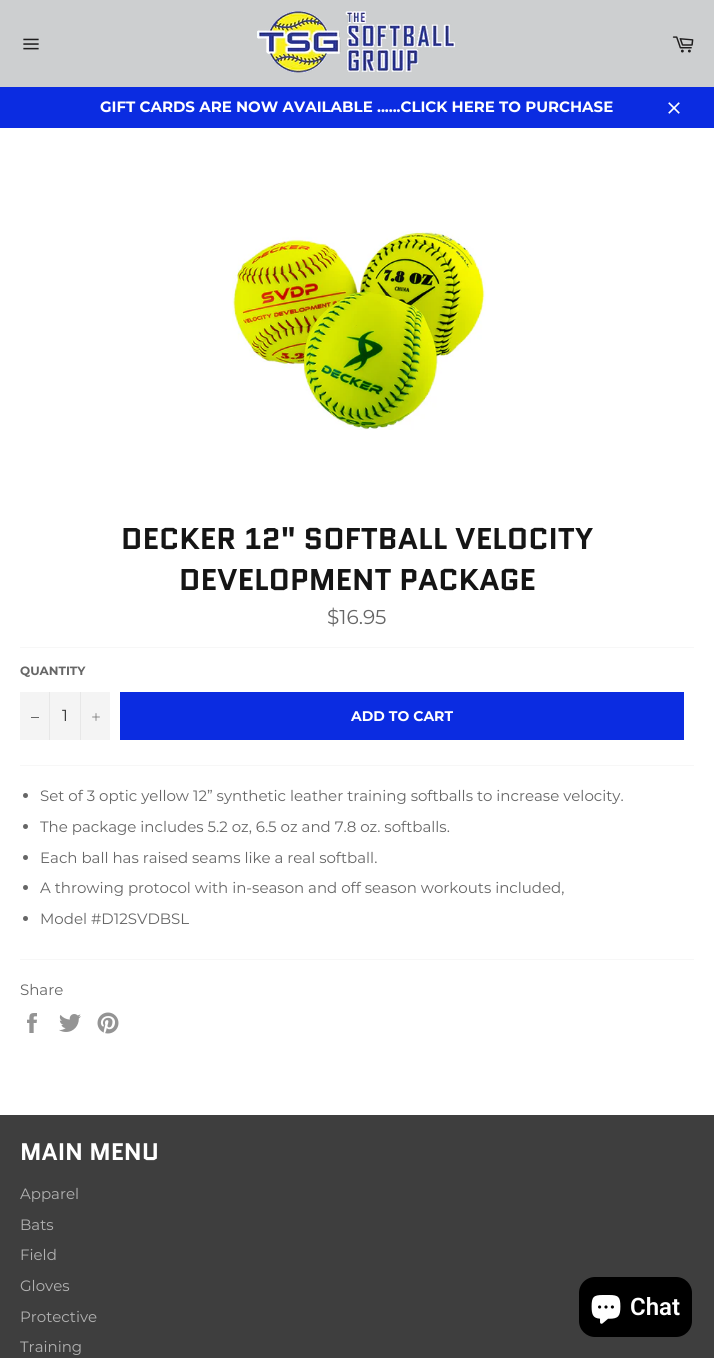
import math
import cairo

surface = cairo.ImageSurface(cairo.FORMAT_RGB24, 714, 1358)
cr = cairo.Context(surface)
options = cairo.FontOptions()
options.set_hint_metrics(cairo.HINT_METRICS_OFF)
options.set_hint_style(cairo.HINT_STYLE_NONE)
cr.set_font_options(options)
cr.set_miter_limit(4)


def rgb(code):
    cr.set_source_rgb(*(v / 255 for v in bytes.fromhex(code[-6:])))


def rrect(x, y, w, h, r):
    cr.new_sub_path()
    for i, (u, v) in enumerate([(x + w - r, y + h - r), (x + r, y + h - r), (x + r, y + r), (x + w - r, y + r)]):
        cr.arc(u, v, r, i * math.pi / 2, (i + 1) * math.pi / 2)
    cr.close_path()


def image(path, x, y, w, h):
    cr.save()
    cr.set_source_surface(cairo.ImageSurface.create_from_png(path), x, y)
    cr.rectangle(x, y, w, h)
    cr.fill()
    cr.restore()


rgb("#cdcfd0")
cr.paint()
image("img/1.png", 23, 38, 16, 12)
image("img/2.png", 257, 11, 198, 62)
image("img/3.png", 672, 36, 22, 17)
rgb("#0b2ce1")
cr.rectangle(0, 87, 714, 41)
cr.fill()
image("img/4.png", 668, 102, 12, 12)
rgb("#ffffff")
cr.rectangle(0, 128, 714, 987)
cr.fill()
image("img/5.png", 232, 231, 254, 199)
for x, y, w, h, color in [
    (20, 647, 674, 1, "#f7f7f7"),
    (20, 692, 90, 48, "#f4f4f4"),
    (49, 692, 1, 48, "#e7e7e7"),
    (31, 717, 8, 1, "#666666"),
    (80, 692, 1, 48, "#e7e7e7"),
]:
    rgb(color)
    cr.rectangle(x, y, w, h)
    cr.fill()
image("img/6.png", 92, 713, 8, 8)
rgb("#0b2ce1")
cr.rectangle(120, 692, 564, 48)
cr.fill()
rgb("#f7f7f7")
cr.rectangle(20, 765, 674, 1)
cr.fill()
rgb("#666666")
cr.arc(25.5, 795.5, 2.5, 0, 2 * math.pi)
cr.fill()
cr.arc(25.5, 826.5, 2.5, 0, 2 * math.pi)
cr.fill()
cr.arc(25.5, 857.5, 2.5, 0, 2 * math.pi)
cr.fill()
cr.arc(25.5, 887.5, 2.5, 0, 2 * math.pi)
cr.fill()
cr.arc(25.5, 918.5, 2.5, 0, 2 * math.pi)
cr.fill()
rgb("#f7f7f7")
cr.rectangle(20, 959, 674, 1)
cr.fill()
image("img/7.png", 27, 1013, 10, 20)
image("img/8.png", 59, 1014, 22, 18)
image("img/9.png", 97, 1012, 22, 22)
rgb("#3e3e3e")
cr.rectangle(0, 1115, 714, 243)
cr.fill()
rgb("#000000")
rrect(579, 1277, 113, 60, 16)
cr.fill()
image("img/10.png", 591, 1295, 30, 29)
cr.select_font_face("Montserrat", cairo.FONT_SLANT_NORMAL, cairo.FONT_WEIGHT_BOLD)
cr.set_font_size(15)
rgb("#ffffff")
cr.move_to(100, 112)
cr.show_text("GIFT CARDS ARE NOW AVAILABLE ......CLICK HERE TO PURCHASE")
cr.select_font_face("Quantico", cairo.FONT_SLANT_NORMAL, cairo.FONT_WEIGHT_BOLD)
cr.set_font_size(30)
rgb("#151515")
cr.move_to(121, 549)
cr.show_text("DECKER 12\" SOFTBALL VELOCITY")
cr.move_to(179, 590)
cr.show_text("DEVELOPMENT PACKAGE")
cr.select_font_face("Montserrat")
cr.set_font_size(20)
rgb("#666666")
cr.move_to(327, 624)
cr.show_text("$16.95")
cr.select_font_face("Montserrat", cairo.FONT_SLANT_NORMAL, cairo.FONT_WEIGHT_BOLD)
cr.set_font_size(12)
cr.move_to(20, 675)
cr.show_text("QUANTITY")
cr.select_font_face("Montserrat")
cr.set_font_size(16)
rgb("#333333")
cr.move_to(62, 721)
cr.show_text("1")
cr.select_font_face("Montserrat", cairo.FONT_SLANT_NORMAL, cairo.FONT_WEIGHT_BOLD)
cr.set_font_size(14)
rgb("#ffffff")
cr.move_to(351, 721)
cr.show_text("ADD TO CART")
cr.select_font_face("Montserrat")
cr.set_font_size(15)
rgb("#666666")
for x, y, s in [
    (40, 801, "Set of 3 optic yellow 12” synthetic leather training softballs to increase velocity."),
    (40, 832, "The package includes 5.2 oz, 6.5 oz and 7.8 oz. softballs."),
    (40, 863, "Each ball has raised seams like a real softball."),
    (40, 893, "A throwing protocol with in-season and off season workouts included,"),
    (40, 924, "Model #D12SVDBSL"),
    (20, 995, "Share"),
]:
    cr.move_to(x, y)
    cr.show_text(s)
cr.select_font_face("Quantico", cairo.FONT_SLANT_NORMAL, cairo.FONT_WEIGHT_BOLD)
cr.set_font_size(24)
rgb("#ffffff")
cr.move_to(20, 1160)
cr.show_text("MAIN MENU")
cr.select_font_face("Montserrat")
cr.set_font_size(15)
rgb("#b2b2b2")
for x, y, s in [
    (20, 1199, "Apparel"),
    (20, 1230, "Bats"),
    (20, 1260, "Field"),
    (20, 1291, "Gloves"),
    (20, 1322, "Protective"),
    (20, 1352, "Training"),
]:
    cr.move_to(x, y)
    cr.show_text(s)
cr.select_font_face("Roboto SemiBold")
cr.set_font_size(24)
rgb("#ffffff")
cr.move_to(630, 1315)
cr.show_text("Chat")
surface.write_to_png("page.png")
